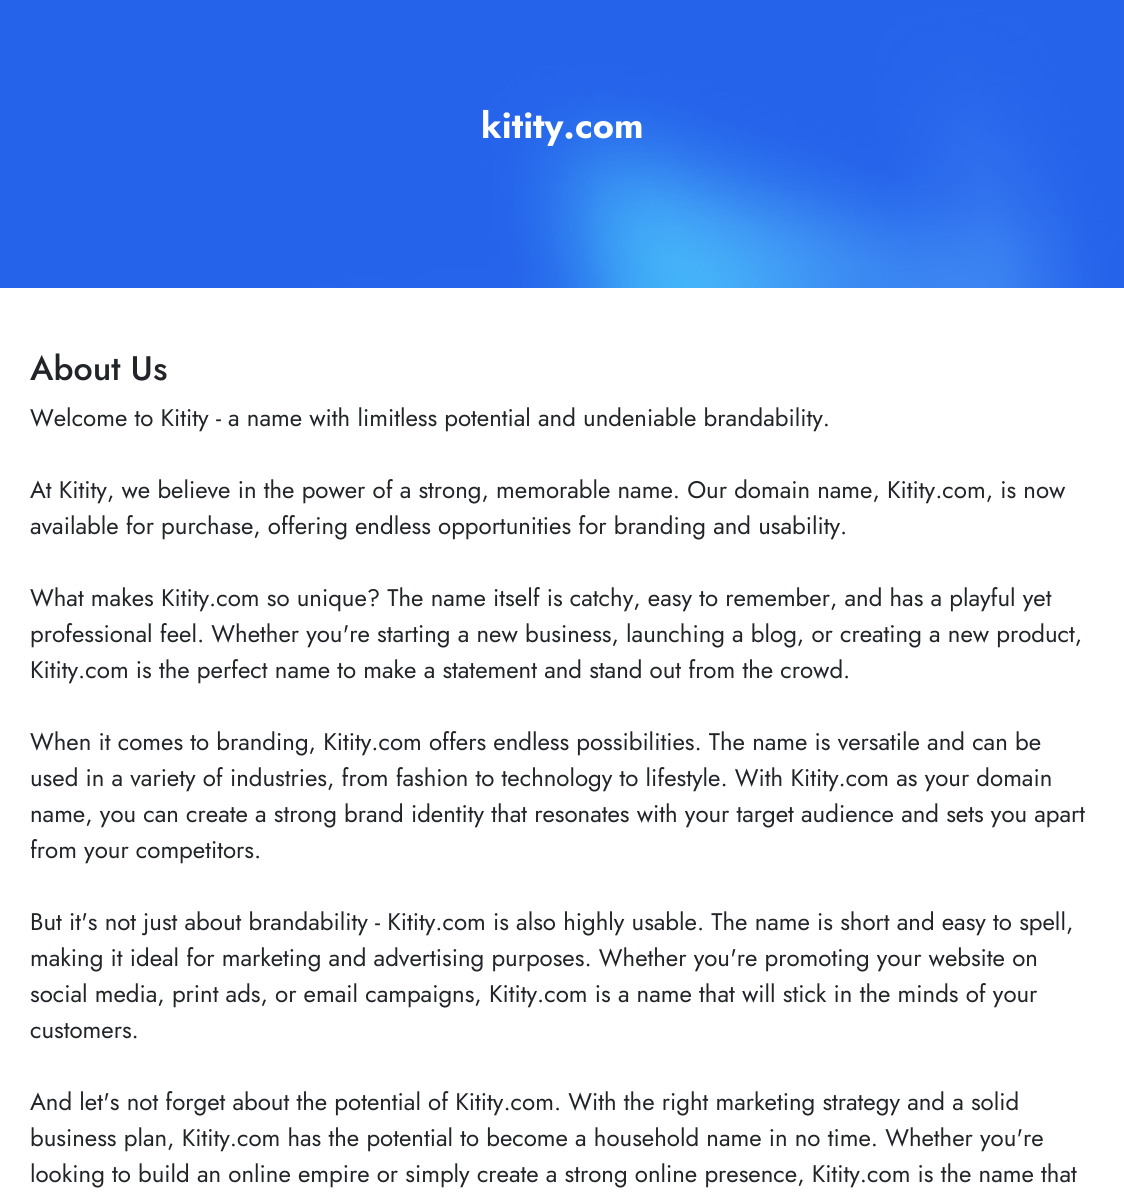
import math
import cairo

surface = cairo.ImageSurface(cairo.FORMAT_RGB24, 1124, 1198)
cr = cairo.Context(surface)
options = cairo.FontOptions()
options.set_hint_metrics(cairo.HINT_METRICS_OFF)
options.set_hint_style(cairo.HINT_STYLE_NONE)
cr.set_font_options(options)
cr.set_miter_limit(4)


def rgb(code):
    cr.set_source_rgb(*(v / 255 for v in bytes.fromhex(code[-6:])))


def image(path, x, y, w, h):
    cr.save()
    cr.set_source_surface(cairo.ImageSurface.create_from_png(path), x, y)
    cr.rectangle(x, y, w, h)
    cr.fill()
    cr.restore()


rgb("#ffffff")
cr.paint()
image("img/1.png", 0, 0, 1124, 288)
cr.select_font_face("Jost", cairo.FONT_SLANT_NORMAL, cairo.FONT_WEIGHT_BOLD)
cr.set_font_size(36)
rgb("#ffffff")
cr.move_to(481, 138)
cr.show_text("kitity.com")
cr.select_font_face("Jost Medium")
cr.set_font_size(34)
rgb("#212529")
cr.move_to(30, 380)
cr.show_text("About Us")
cr.select_font_face("Jost")
cr.set_font_size(24)
for x, y, s in [
    (30, 426, "Welcome to Kitity - a name with limitless potential and undeniable brandability."),
    (30, 498, "At Kitity, we believe in the power of a strong, memorable name. Our domain name, Kitity.com, is now"),
    (30, 534, "available for purchase, offering endless opportunities for branding and usability."),
    (30, 606, "What makes Kitity.com so unique? The name itself is catchy, easy to remember, and has a playful yet"),
    (30, 642, "professional feel. Whether you're starting a new business, launching a blog, or creating a new product,"),
    (30, 678, "Kitity.com is the perfect name to make a statement and stand out from the crowd."),
    (30, 750, "When it comes to branding, Kitity.com offers endless possibilities. The name is versatile and can be"),
    (30, 786, "used in a variety of industries, from fashion to technology to lifestyle. With Kitity.com as your domain"),
    (30, 822, "name, you can create a strong brand identity that resonates with your target audience and sets you apart"),
    (30, 858, "from your competitors."),
    (30, 930, "But it's not just about brandability - Kitity.com is also highly usable. The name is short and easy to spell,"),
    (30, 966, "making it ideal for marketing and advertising purposes. Whether you're promoting your website on"),
    (30, 1002, "social media, print ads, or email campaigns, Kitity.com is a name that will stick in the minds of your"),
    (30, 1038, "customers."),
    (30, 1110, "And let's not forget about the potential of Kitity.com. With the right marketing strategy and a solid"),
    (30, 1146, "business plan, Kitity.com has the potential to become a household name in no time. Whether you're"),
    (30, 1182, "looking to build an online empire or simply create a strong online presence, Kitity.com is the name that"),
]:
    cr.move_to(x, y)
    cr.show_text(s)
surface.write_to_png("page.png")
